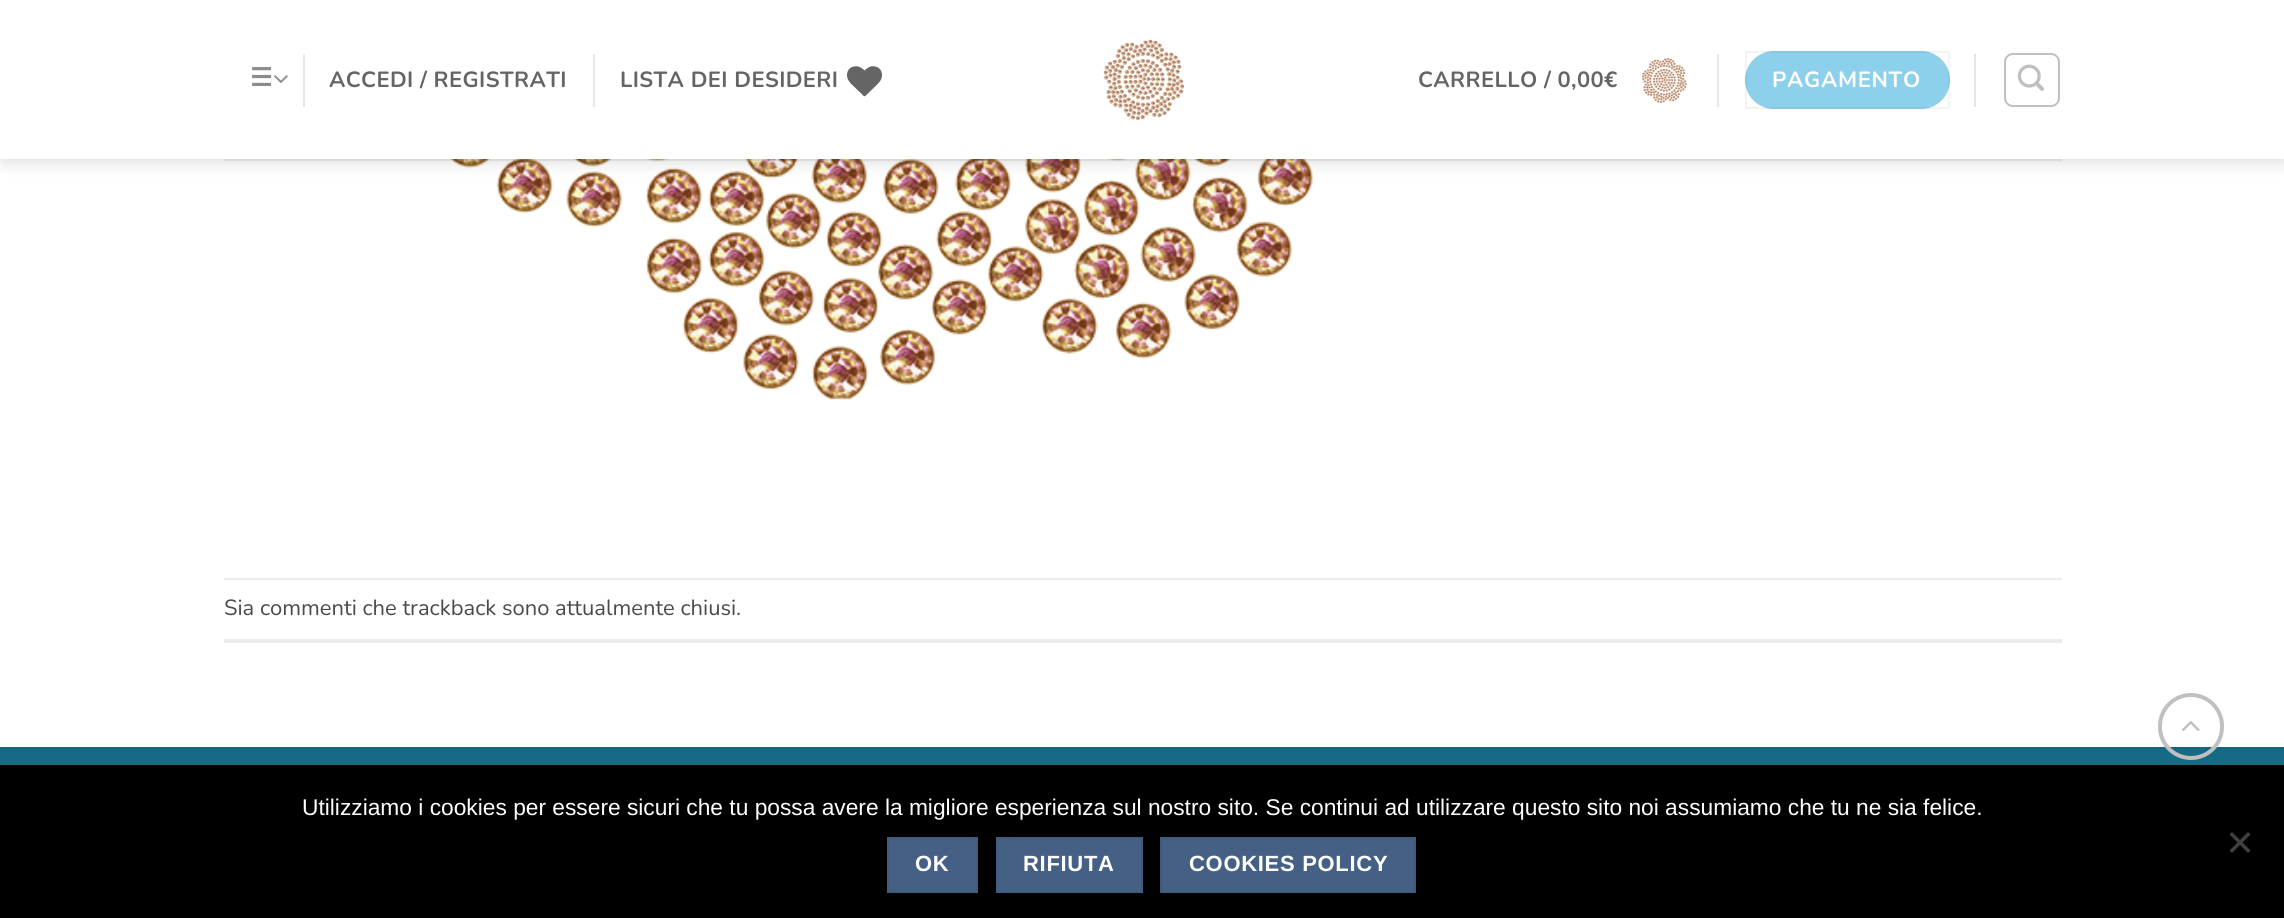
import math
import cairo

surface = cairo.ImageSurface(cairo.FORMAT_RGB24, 2284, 918)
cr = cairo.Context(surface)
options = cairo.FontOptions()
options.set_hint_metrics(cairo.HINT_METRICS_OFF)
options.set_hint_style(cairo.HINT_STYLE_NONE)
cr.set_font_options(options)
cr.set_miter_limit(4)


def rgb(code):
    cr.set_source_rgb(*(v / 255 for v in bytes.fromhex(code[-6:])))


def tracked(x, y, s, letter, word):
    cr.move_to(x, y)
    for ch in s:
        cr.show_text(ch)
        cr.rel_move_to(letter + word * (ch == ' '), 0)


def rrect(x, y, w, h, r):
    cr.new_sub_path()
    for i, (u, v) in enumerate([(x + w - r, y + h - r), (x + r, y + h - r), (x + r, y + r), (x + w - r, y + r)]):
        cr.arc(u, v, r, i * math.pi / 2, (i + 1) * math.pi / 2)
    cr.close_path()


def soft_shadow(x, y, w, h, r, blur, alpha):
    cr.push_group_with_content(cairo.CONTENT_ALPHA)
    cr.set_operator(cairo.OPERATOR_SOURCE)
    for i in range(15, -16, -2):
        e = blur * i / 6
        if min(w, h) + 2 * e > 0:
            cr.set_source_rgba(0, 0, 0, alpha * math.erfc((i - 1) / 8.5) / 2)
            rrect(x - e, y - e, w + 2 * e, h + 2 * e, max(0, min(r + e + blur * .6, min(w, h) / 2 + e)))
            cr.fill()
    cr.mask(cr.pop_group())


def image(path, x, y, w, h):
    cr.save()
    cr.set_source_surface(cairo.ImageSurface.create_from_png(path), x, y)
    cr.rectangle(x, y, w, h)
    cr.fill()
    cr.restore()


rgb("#ffffff")
cr.paint()
image("img/6.png", 449, 159, 864, 241)
rgb("#000000")
soft_shadow(2, 2, 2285, 159, 0, 9, 0.15)
rgb("#ffffff")
cr.rectangle(0, 0, 2284, 159)
cr.fill()
image("img/1.png", 274, 75, 14, 8)
rgb("#e6e6e6")
cr.rectangle(303, 54, 2, 53)
cr.fill()
cr.rectangle(593, 54, 2, 53)
cr.fill()
image("img/2.png", 847, 66, 35, 31)
image("img/3.png", 1103, 39, 81, 82)
image("img/4.png", 1642, 58, 45, 46)
cr.rectangle(1717, 54, 2, 53)
cr.fill()
rgb("#8dd0eb")
rrect(1745, 51, 205, 58, 29)
cr.fill()
cr.rectangle(1746, 52, 203, 56)
cr.set_source_rgba(0, 0, 0, 0.05)
cr.stroke()
rgb("#e6e6e6")
cr.rectangle(1974, 54, 2, 53)
cr.fill()
rrect(2005, 54, 54, 52, 8)
rgb("#c0c0c0")
cr.stroke()
image("img/5.png", 2017, 64, 27, 27)
cr.set_source_rgba(0.29, 0.29, 0.29, 0.1)
cr.rectangle(224, 159, 1838, 2)
cr.fill()
rgb("#ececec")
cr.rectangle(224, 578, 1838, 2)
cr.rectangle(224, 639, 1838, 4)
cr.fill()
rgb("#166a83")
cr.rectangle(0, 749, 2284, 16)
cr.fill()
rgb("#15657c")
cr.rectangle(0, 747, 2284, 2)
cr.fill()
rrect(2160, 695, 62, 63, 31)
rgb("#c0c0c0")
cr.set_line_width(4)
cr.stroke()
image("img/7.png", 2182, 720, 18, 11)
rgb("#000000")
cr.rectangle(0, 765, 2284, 153)
cr.fill()
rgb("#404040")
cr.new_path()
cr.move_to(2248, 832)
cr.line_to(2250.5, 834.5)
cr.line_to(2232, 853)
cr.line_to(2229.5, 850.5)
cr.close_path()
cr.fill()
cr.new_path()
cr.move_to(2229.5, 834.5)
cr.line_to(2232, 832)
cr.line_to(2250.5, 850.5)
cr.line_to(2248, 853)
cr.close_path()
cr.fill()
rgb("#446084")
cr.rectangle(888, 838, 89, 54)
cr.fill_preserve()
rgb("#415b7d")
cr.set_line_width(2)
cr.stroke()
rgb("#446084")
cr.rectangle(997, 838, 145, 54)
cr.fill_preserve()
rgb("#415b7d")
cr.stroke()
rgb("#446084")
cr.rectangle(1161, 838, 254, 54)
cr.fill_preserve()
rgb("#415b7d")
cr.stroke()
cr.select_font_face("DejaVu Sans", cairo.FONT_SLANT_NORMAL, cairo.FONT_WEIGHT_BOLD)
cr.set_font_size(25)
rgb("#8c8c8c")
cr.move_to(250, 86)
cr.show_text("☰")
cr.select_font_face("Nunito", cairo.FONT_SLANT_NORMAL, cairo.FONT_WEIGHT_BOLD)
cr.set_font_size(21.95)
rgb("#656565")
for x, y, s in [
    (329, 87, "ACCEDI / REGISTRATI"),
    (620, 87, "LISTA DEI DESIDERI"),
    (1418, 87, "CARRELLO / 0,00€"),
]:
    tracked(x, y, s, 0.4, 0)
rgb("#ffffff")
tracked(1772, 87, "PAGAMENTO", 0.7, 0)
cr.select_font_face("Nunito")
rgb("#4a4a4a")
cr.move_to(224, 615)
cr.show_text("Sia commenti che trackback sono attualmente chiusi.")
cr.select_font_face("Liberation Sans")
cr.set_font_size(22.75)
rgb("#ffffff")
cr.move_to(302, 815)
cr.show_text("Utilizziamo i cookies per essere sicuri che tu possa avere la migliore esperienza sul nostro sito. Se continui ad utilizzare questo sito noi assumiamo che tu ne sia felice.")
cr.select_font_face("Liberation Sans", cairo.FONT_SLANT_NORMAL, cairo.FONT_WEIGHT_BOLD)
cr.set_font_size(22)
for x, y, s in [
    (915, 871, "OK"),
    (1023, 871, "RIFIUTA"),
    (1189, 871, "COOKIES POLICY"),
]:
    tracked(x, y, s, 0.7, 0)
surface.write_to_png("page.png")
